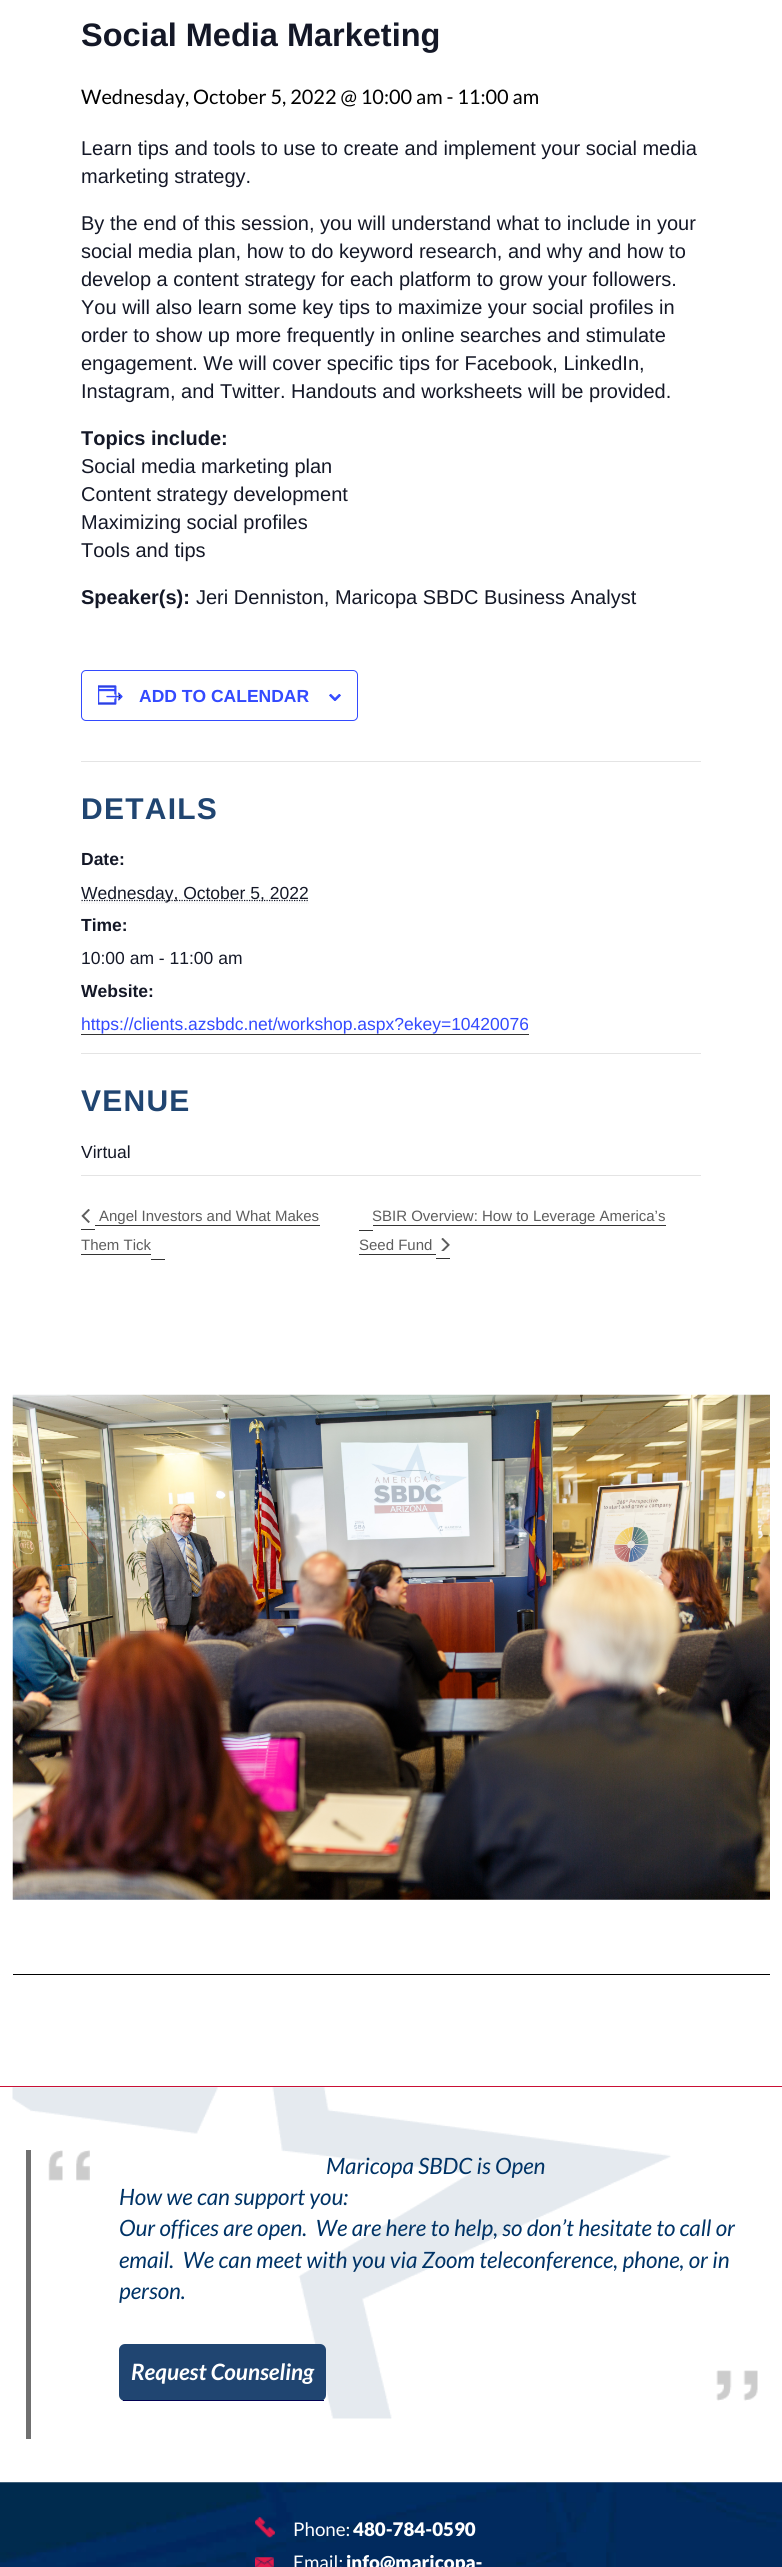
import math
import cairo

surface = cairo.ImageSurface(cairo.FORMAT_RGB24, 782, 2567)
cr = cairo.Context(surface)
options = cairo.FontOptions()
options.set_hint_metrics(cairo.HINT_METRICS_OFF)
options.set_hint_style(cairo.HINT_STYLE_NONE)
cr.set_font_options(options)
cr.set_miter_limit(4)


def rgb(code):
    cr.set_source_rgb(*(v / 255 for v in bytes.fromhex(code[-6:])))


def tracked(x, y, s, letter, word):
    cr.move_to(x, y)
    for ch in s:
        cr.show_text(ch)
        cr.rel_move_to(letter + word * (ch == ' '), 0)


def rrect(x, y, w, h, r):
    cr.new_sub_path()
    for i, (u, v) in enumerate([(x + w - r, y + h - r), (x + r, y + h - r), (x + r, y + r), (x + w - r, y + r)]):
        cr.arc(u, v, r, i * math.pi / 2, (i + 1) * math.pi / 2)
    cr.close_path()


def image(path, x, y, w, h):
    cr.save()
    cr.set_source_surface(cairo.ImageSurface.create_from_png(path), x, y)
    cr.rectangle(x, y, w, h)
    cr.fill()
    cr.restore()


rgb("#ffffff")
cr.paint()
rgb("#c90f35")
cr.rectangle(0, 2086, 782, 1)
cr.fill()
rrect(81.5, 670.5, 276, 50, 4.5)
rgb("#334aff")
cr.set_line_width(1)
cr.stroke()
image("img/1.png", 98, 685, 25, 20)
image("img/2.png", 329, 694, 12, 7)
rgb("#e4e4e4")
cr.rectangle(81, 761, 620, 1)
cr.fill()
cr.new_path()
cr.move_to(81, 903)
cr.line_to(309, 903)
rgb("#ebebeb")
cr.set_line_width(1.2)
cr.set_dash([1.25, 1.25])
cr.stroke()
cr.new_path()
cr.move_to(81.5, 900.5)
cr.line_to(309, 900.5)
rgb("#141827")
cr.stroke()
for x, y, w, h, color in [
    (81, 1034, 448, 1, "#333333"),
    (81, 1053, 620, 1, "#e4e4e4"),
    (81, 1175, 620, 1, "#e4e4e4"),
    (81, 1229, 14, 1, "#333333"),
    (95, 1225, 225, 1, "#333333"),
    (81, 1254, 70, 1, "#333333"),
    (151, 1259, 14, 1, "#333333"),
]:
    rgb(color)
    cr.rectangle(x, y, w, h)
    cr.fill()
image("img/3.png", 81, 1209, 9, 14)
for x, y, w, h, color in [
    (359, 1230, 14, 1, "#333333"),
    (373, 1225, 293, 1, "#333333"),
    (359, 1254, 77, 1, "#333333"),
    (436, 1258, 14, 1, "#333333"),
]:
    rgb(color)
    cr.rectangle(x, y, w, h)
    cr.fill()
image("img/4.png", 441, 1238, 9, 13)
image("img/5.png", 12, 1394, 758, 506)
rgb("#000000")
cr.rectangle(13, 1974, 757, 1)
cr.fill()
image("img/6.png", 12, 2087, 659, 332)
rgb("#707070")
cr.rectangle(26, 2150, 5, 289)
cr.fill()
image("img/7.png", 48, 2150, 42, 31)
rgb("#204571")
rrect(119, 2344, 207, 57, 6)
cr.fill()
rgb("#010052")
cr.rectangle(123, 2400, 201, 1)
cr.fill()
image("img/8.png", 716, 2370, 42, 31)
image("img/9.png", 0, 2482, 782, 85)
image("img/10.png", 255, 2517, 20, 21)
image("img/11.png", 255, 2557, 19, 10)
cr.select_font_face("Liberation Sans", cairo.FONT_SLANT_NORMAL, cairo.FONT_WEIGHT_BOLD)
cr.set_font_size(32.5)
rgb("#141827")
cr.move_to(81, 46)
cr.show_text("Social Media Marketing")
cr.select_font_face("Lato")
cr.set_font_size(20)
rgb("#000000")
cr.move_to(81, 104)
cr.show_text("Wednesday, October 5, 2022 @ 10:00 am - 11:00 am")
cr.select_font_face("Liberation Sans")
rgb("#141827")
for x, y, s in [
    (81, 155, "Learn tips and tools to use to create and implement your social media"),
    (81, 183, "marketing strategy."),
    (81, 230, "By the end of this session, you will understand what to include in your"),
    (81, 258, "social media plan, how to do keyword research, and why and how to"),
    (81, 286, "develop a content strategy for each platform to grow your followers."),
    (81, 314, "You will also learn some key tips to maximize your social profiles in"),
    (81, 342, "order to show up more frequently in online searches and stimulate"),
    (81, 370, "engagement. We will cover specific tips for Facebook, LinkedIn,"),
    (81, 398, "Instagram, and Twitter. Handouts and worksheets will be provided."),
]:
    cr.move_to(x, y)
    cr.show_text(s)
cr.select_font_face("Liberation Sans", cairo.FONT_SLANT_NORMAL, cairo.FONT_WEIGHT_BOLD)
cr.move_to(81, 445)
cr.show_text("Topics include:")
cr.select_font_face("Liberation Sans")
for x, y, s in [
    (81, 473, "Social media marketing plan"),
    (81, 501, "Content strategy development"),
    (81, 529, "Maximizing social profiles"),
    (81, 557, "Tools and tips"),
]:
    cr.move_to(x, y)
    cr.show_text(s)
cr.select_font_face("Liberation Sans", cairo.FONT_SLANT_NORMAL, cairo.FONT_WEIGHT_BOLD)
cr.move_to(81, 604)
cr.show_text("Speaker(s):")
cr.select_font_face("Liberation Sans")
cr.move_to(196, 604)
cr.show_text("Jeri Denniston, Maricopa SBDC Business Analyst")
cr.select_font_face("Liberation Sans", cairo.FONT_SLANT_NORMAL, cairo.FONT_WEIGHT_BOLD)
cr.set_font_size(17.5)
rgb("#334aff")
cr.move_to(139, 702)
cr.show_text("ADD TO CALENDAR")
cr.set_font_size(30)
rgb("#204571")
tracked(81, 819, "DETAILS", 1.25, 0)
cr.set_font_size(17.5)
rgb("#141827")
cr.move_to(81, 865)
cr.show_text("Date:")
cr.select_font_face("Liberation Sans")
cr.move_to(81, 899)
cr.show_text("Wednesday, October 5, 2022")
cr.select_font_face("Liberation Sans", cairo.FONT_SLANT_NORMAL, cairo.FONT_WEIGHT_BOLD)
cr.move_to(81, 931)
cr.show_text("Time:")
cr.select_font_face("Liberation Sans")
cr.move_to(81, 964)
cr.show_text("10:00 am - 11:00 am")
cr.select_font_face("Liberation Sans", cairo.FONT_SLANT_NORMAL, cairo.FONT_WEIGHT_BOLD)
cr.move_to(81, 997)
cr.show_text("Website:")
cr.select_font_face("Liberation Sans")
rgb("#334aff")
cr.move_to(81, 1030)
cr.show_text("https://clients.azsbdc.net/workshop.aspx?ekey=10420076")
cr.select_font_face("Liberation Sans", cairo.FONT_SLANT_NORMAL, cairo.FONT_WEIGHT_BOLD)
cr.set_font_size(30)
rgb("#204571")
tracked(81, 1111, "VENUE", 1.25, 0)
cr.select_font_face("Liberation Sans")
cr.set_font_size(17.5)
rgb("#141827")
cr.move_to(81, 1158)
cr.show_text("Virtual")
cr.set_font_size(15)
rgb("#5d5d5d")
for x, y, s in [
    (99, 1221, "Angel Investors and What Makes"),
    (81, 1250, "Them Tick"),
    (372, 1221, "SBIR Overview: How to Leverage America’s"),
    (359, 1250, "Seed Fund"),
]:
    cr.move_to(x, y)
    cr.show_text(s)
cr.select_font_face("Lato", cairo.FONT_SLANT_ITALIC)
cr.set_font_size(22.5)
rgb("#003366")
for x, y, s in [
    (326, 2174, "Maricopa SBDC is Open"),
    (119, 2205, "How we can support you:"),
    (119, 2236, "Our offices are open.  We are here to help, so don’t hesitate to call or"),
    (119, 2268, "email.  We can meet with you via Zoom teleconference, phone, or in"),
    (119, 2299, "person."),
]:
    cr.move_to(x, y)
    cr.show_text(s)
cr.select_font_face("Lato", cairo.FONT_SLANT_ITALIC, cairo.FONT_WEIGHT_BOLD)
rgb("#ffffff")
cr.move_to(131, 2380)
cr.show_text("Request Counseling")
cr.select_font_face("Lato")
cr.set_font_size(18.75)
cr.move_to(293, 2536)
cr.show_text("Phone:")
cr.select_font_face("Lato Black")
cr.move_to(353, 2536)
cr.show_text("480-784-0590")
cr.select_font_face("Lato")
cr.move_to(293, 2569)
cr.show_text("Email:")
cr.select_font_face("Lato Black")
cr.move_to(346, 2569)
cr.show_text("info@maricopa-")
surface.write_to_png("page.png")
